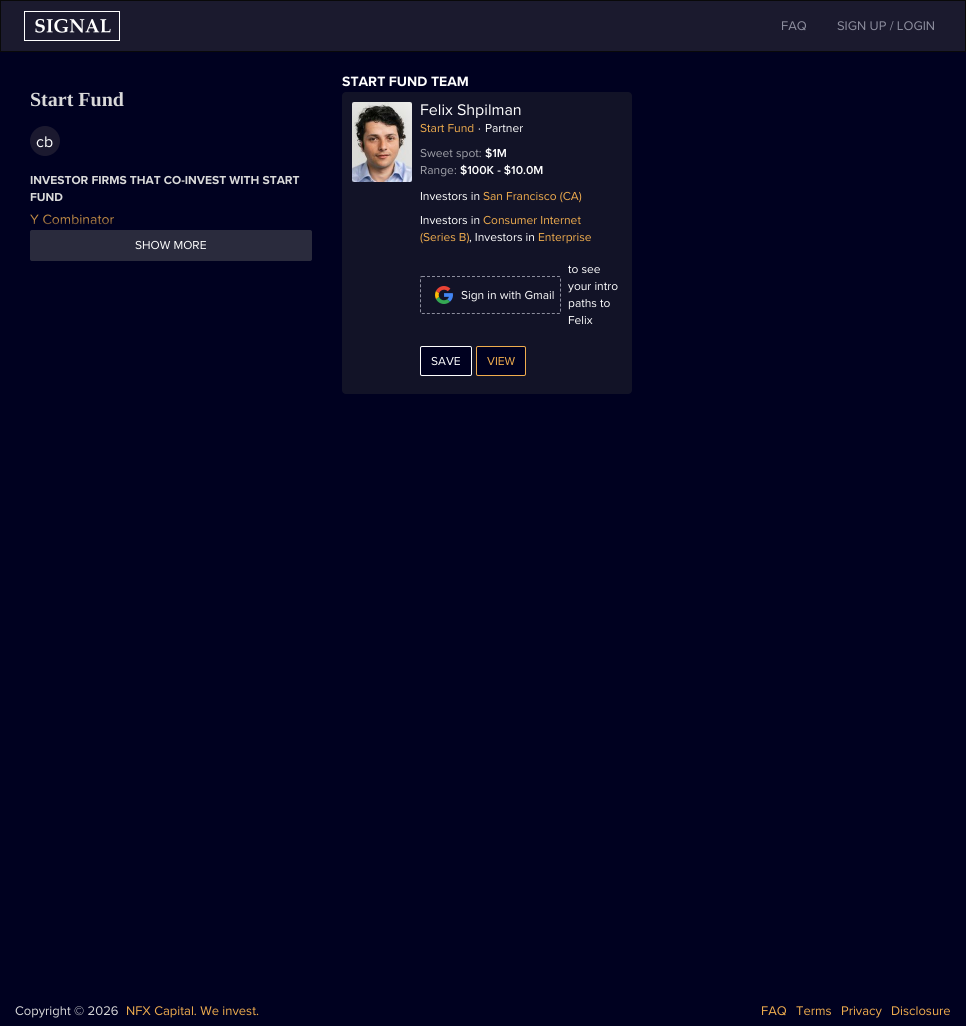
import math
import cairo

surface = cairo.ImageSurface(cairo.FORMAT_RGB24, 966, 1026)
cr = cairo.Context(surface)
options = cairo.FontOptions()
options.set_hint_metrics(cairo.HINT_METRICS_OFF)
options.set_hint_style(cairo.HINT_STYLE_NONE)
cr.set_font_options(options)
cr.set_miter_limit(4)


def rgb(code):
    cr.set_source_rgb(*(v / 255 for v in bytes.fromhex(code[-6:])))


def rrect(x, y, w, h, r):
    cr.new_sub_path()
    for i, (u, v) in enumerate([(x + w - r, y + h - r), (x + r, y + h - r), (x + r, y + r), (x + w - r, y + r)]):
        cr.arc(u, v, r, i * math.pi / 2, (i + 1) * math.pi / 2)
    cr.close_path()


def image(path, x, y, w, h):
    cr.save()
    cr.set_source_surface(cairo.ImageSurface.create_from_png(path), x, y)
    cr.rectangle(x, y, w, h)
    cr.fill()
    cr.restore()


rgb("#000120")
cr.paint()
rgb("#1b1a2e")
cr.rectangle(0.5, 0.5, 965, 51)
cr.fill_preserve()
rgb("#090909")
cr.set_line_width(1)
cr.stroke()
image("img/1.png", 24, 11, 96, 30)
rgb("#1b192f")
cr.arc(45, 141, 15, 0, 2 * math.pi)
cr.fill()
rgb("#2a2b3d")
rrect(30.5, 230.5, 281, 30, 1.5)
cr.fill_preserve()
cr.stroke()
rgb("#121327")
rrect(342, 92, 290, 302, 4)
cr.fill()
image("img/2.png", 352, 102, 60, 80)
cr.new_path()
cr.move_to(422, 276.5)
cr.line_to(559, 276.5)
cr.curve_to(560, 276.5, 560.5, 277, 560.5, 278)
cr.line_to(560.5, 312)
cr.curve_to(560.5, 313, 560, 313.5, 559, 313.5)
cr.line_to(422, 313.5)
cr.curve_to(421, 313.5, 420.5, 313, 420.5, 312)
cr.line_to(420.5, 278)
cr.curve_to(420.5, 277, 421, 276.5, 422, 276.5)
cr.close_path()
rgb("#8c8d9d")
cr.set_dash([3, 2])
cr.stroke()
image("img/3.png", 435, 286, 18, 18)
rgb("#000120")
rrect(420.5, 346.5, 51, 29, 1.5)
cr.fill_preserve()
rgb("#ffffff")
cr.set_dash([])
cr.stroke()
rgb("#000120")
rrect(476.5, 346.5, 49, 29, 1.5)
cr.fill_preserve()
rgb("#f0ad4e")
cr.stroke()
cr.select_font_face("Proxima Nova")
cr.set_font_size(13)
rgb("#8e8f9f")
cr.move_to(781, 30)
cr.show_text("FAQ")
cr.move_to(837, 30)
cr.show_text("SIGN UP / LOGIN")
cr.select_font_face("Liberation Serif", cairo.FONT_SLANT_NORMAL, cairo.FONT_WEIGHT_BOLD)
cr.set_font_size(20)
rgb("#d9d9d9")
cr.move_to(30, 106)
cr.show_text("Start Fund")
cr.select_font_face("Proxima Nova")
cr.set_font_size(16)
rgb("#ffffff")
cr.move_to(36, 147)
cr.show_text("cb")
cr.select_font_face("Proxima Nova", cairo.FONT_SLANT_NORMAL, cairo.FONT_WEIGHT_BOLD)
cr.set_font_size(12)
rgb("#d9d9d9")
cr.move_to(30, 184)
cr.show_text("INVESTOR FIRMS THAT CO-INVEST WITH START")
cr.move_to(30, 201)
cr.show_text("FUND")
cr.select_font_face("Proxima Nova")
cr.set_font_size(14)
rgb("#c08b45")
cr.move_to(30, 224)
cr.show_text("Y Combinator")
gradient = cairo.LinearGradient(171, 220, 171, 230)
gradient.add_color_stop_rgba(0, 0, 0.004, 0.125, 0)
gradient.add_color_stop_rgba(1, 0, 0.004, 0.125, 1)
cr.set_source(gradient)
cr.rectangle(33, 220, 79, 5)
cr.fill()
cr.set_font_size(12)
rgb("#ffffff")
cr.move_to(135, 249)
cr.show_text("SHOW MORE")
cr.select_font_face("Proxima Nova", cairo.FONT_SLANT_NORMAL, cairo.FONT_WEIGHT_BOLD)
cr.set_font_size(14)
cr.move_to(342, 86)
cr.show_text("START FUND TEAM")
cr.select_font_face("Proxima Nova")
cr.set_font_size(16)
cr.move_to(420, 115)
cr.show_text("Felix Shpilman")
cr.set_font_size(12)
rgb("#f0ad4e")
cr.move_to(420, 132)
cr.show_text("Start Fund")
rgb("#ffffff")
cr.move_to(478, 132)
cr.show_text("·")
cr.move_to(485, 132)
cr.show_text("Partner")
rgb("#a0a1a9")
cr.move_to(420, 157)
cr.show_text("Sweet spot:")
cr.select_font_face("Proxima Nova SemiBold")
rgb("#ffffff")
cr.move_to(485, 157)
cr.show_text("$1M")
cr.select_font_face("Proxima Nova")
rgb("#a0a1a9")
cr.move_to(420, 174)
cr.show_text("Range:")
cr.select_font_face("Proxima Nova SemiBold")
rgb("#ffffff")
cr.move_to(460, 174)
cr.show_text("$100K - $10.0M")
cr.select_font_face("Proxima Nova")
cr.move_to(420, 200)
cr.show_text("Investors in")
rgb("#f0ad4e")
cr.move_to(483, 200)
cr.show_text("San Francisco (CA)")
rgb("#ffffff")
cr.move_to(420, 224)
cr.show_text("Investors in")
rgb("#f0ad4e")
cr.move_to(483, 224)
cr.show_text("Consumer Internet")
cr.move_to(420, 241)
cr.show_text("(Series B)")
rgb("#ffffff")
cr.move_to(469, 241)
cr.show_text(", Investors in")
rgb("#f0ad4e")
cr.move_to(538, 241)
cr.show_text("Enterprise")
rgb("#ffffff")
for x, y, s in [
    (461, 299, "Sign in with Gmail"),
    (568, 273, "to see"),
    (568, 290, "your intro"),
    (568, 307, "paths to"),
    (568, 324, "Felix"),
    (431, 365, "SAVE"),
]:
    cr.move_to(x, y)
    cr.show_text(s)
rgb("#f0ad4e")
cr.move_to(487, 365)
cr.show_text("VIEW")
cr.set_font_size(13)
rgb("#d9d9d9")
cr.move_to(15, 1015)
cr.show_text("Copyright © 2026")
rgb("#f0ad4e")
for x, y, s in [
    (126, 1015, "NFX Capital. We invest."),
    (761, 1015, "FAQ"),
    (796, 1015, "Terms"),
    (841, 1015, "Privacy"),
    (891, 1015, "Disclosure"),
]:
    cr.move_to(x, y)
    cr.show_text(s)
surface.write_to_png("page.png")
